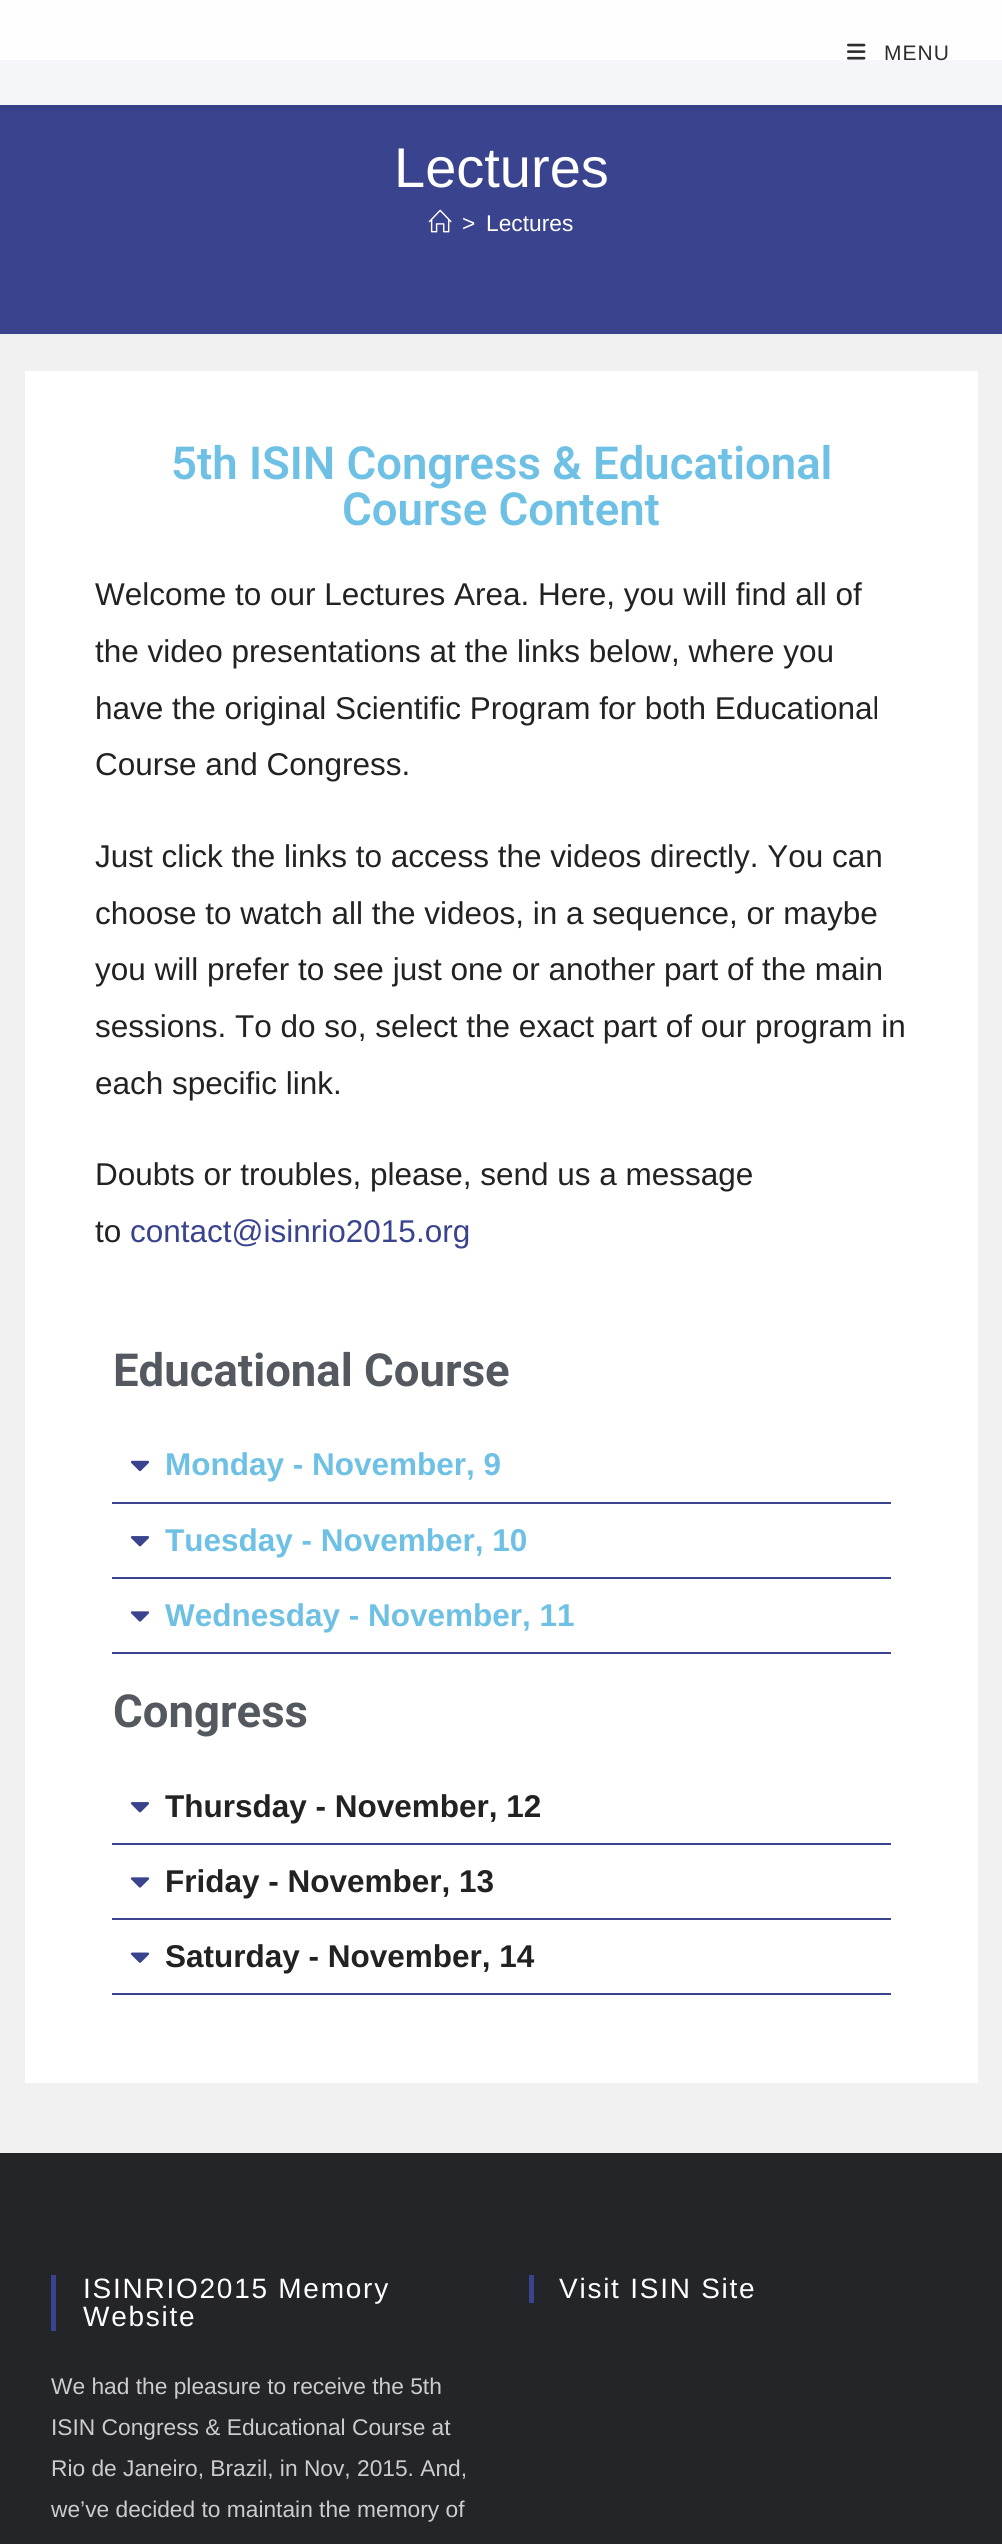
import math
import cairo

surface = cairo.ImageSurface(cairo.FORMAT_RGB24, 1002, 2544)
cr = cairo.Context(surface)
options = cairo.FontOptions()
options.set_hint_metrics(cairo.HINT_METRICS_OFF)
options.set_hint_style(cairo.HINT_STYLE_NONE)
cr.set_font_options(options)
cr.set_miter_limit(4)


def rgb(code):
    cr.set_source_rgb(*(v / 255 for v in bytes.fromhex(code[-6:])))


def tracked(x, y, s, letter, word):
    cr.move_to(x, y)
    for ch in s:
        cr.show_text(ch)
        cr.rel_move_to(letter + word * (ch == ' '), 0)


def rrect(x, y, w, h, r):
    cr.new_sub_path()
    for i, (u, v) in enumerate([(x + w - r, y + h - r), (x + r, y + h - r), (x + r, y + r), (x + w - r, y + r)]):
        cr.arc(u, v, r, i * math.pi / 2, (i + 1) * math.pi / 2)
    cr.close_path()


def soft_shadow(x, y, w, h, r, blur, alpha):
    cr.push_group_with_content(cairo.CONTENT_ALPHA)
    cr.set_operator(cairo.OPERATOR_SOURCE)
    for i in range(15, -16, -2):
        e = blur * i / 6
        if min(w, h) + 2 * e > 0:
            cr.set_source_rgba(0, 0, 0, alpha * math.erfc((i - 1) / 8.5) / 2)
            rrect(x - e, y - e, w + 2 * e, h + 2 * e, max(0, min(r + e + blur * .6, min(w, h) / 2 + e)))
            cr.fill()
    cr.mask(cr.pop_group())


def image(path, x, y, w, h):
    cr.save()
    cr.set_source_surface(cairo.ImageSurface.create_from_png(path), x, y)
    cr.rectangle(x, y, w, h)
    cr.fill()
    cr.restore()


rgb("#f1f1f1")
cr.paint()
for x, y, w, h, color in [
    (0, 0, 1002, 60, "#fefefe"),
    (0, 105, 1002, 229, "#3a438e"),
    (0, 60, 1002, 45, "#f5f6f9"),
]:
    rgb(color)
    cr.rectangle(x, y, w, h)
    cr.fill()
cr.save()
cr.rectangle(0, 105, 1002, 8)
cr.clip()
rgb("#030307")
soft_shadow(0, 4, 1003, 105, 0, 4.5, 0.1)
cr.restore()
image("img/1.png", 847, 43, 19, 17)
image("img/2.png", 428, 209, 24, 24)
rgb("#ffffff")
cr.rectangle(25, 371, 953, 1712)
cr.fill()
rgb("#3a438e")
cr.rectangle(112, 1502, 779, 2)
cr.fill()
image("img/3.png", 130, 1460, 20, 12)
cr.rectangle(112, 1577, 779, 2)
cr.fill()
image("img/4.png", 130, 1536, 20, 11)
cr.rectangle(112, 1652, 779, 2)
cr.fill()
image("img/5.png", 130, 1611, 20, 11)
cr.rectangle(112, 1843, 779, 2)
cr.fill()
image("img/4.png", 130, 1802, 20, 11)
cr.rectangle(112, 1918, 779, 2)
cr.fill()
image("img/5.png", 130, 1877, 20, 11)
cr.rectangle(112, 1993, 779, 2)
cr.fill()
image("img/6.png", 130, 1952, 20, 11)
for x, y, w, h, color in [
    (0, 2153, 1002, 391, "#242529"),
    (51, 2275, 5, 56, "#3a438e"),
    (529, 2275, 5, 28, "#3a438e"),
]:
    rgb(color)
    cr.rectangle(x, y, w, h)
    cr.fill()
cr.select_font_face("Liberation Sans")
cr.set_font_size(21)
rgb("#2d2d2d")
tracked(884, 60, "MENU", 1, 0)
cr.set_font_size(56)
rgb("#ffffff")
cr.move_to(394, 187)
cr.show_text("Lectures")
cr.set_font_size(22.75)
cr.move_to(462, 231)
cr.show_text(">")
cr.move_to(486, 231)
cr.show_text("Lectures")
cr.select_font_face("Roboto SemiBold")
cr.set_font_size(45.5)
rgb("#6ec1e4")
cr.move_to(171, 479)
cr.show_text("5th ISIN Congress & Educational")
cr.move_to(342, 525)
cr.show_text("Course Content")
cr.select_font_face("Liberation Sans")
cr.set_font_size(31.5)
rgb("#222222")
for x, y, s in [
    (95, 605, "Welcome to our Lectures Area. Here, you will find all of"),
    (95, 662, "the video presentations at the links below, where you"),
    (95, 719, "have the original Scientific Program for both Educational"),
    (95, 775, "Course and Congress."),
    (95, 867, "Just click the links to access the videos directly. You can"),
    (95, 924, "choose to watch all the videos, in a sequence, or maybe"),
    (95, 980, "you will prefer to see just one or another part of the main"),
    (95, 1037, "sessions. To do so, select the exact part of our program in"),
    (95, 1094, "each specific link."),
    (95, 1185, "Doubts or troubles, please, send us a message"),
    (95, 1242, "to"),
]:
    cr.move_to(x, y)
    cr.show_text(s)
rgb("#3a438e")
cr.move_to(130, 1242)
cr.show_text("contact@isinrio2015.org")
cr.select_font_face("Roboto", cairo.FONT_SLANT_NORMAL, cairo.FONT_WEIGHT_BOLD)
cr.set_font_size(45.5)
rgb("#54595f")
cr.move_to(113, 1386)
cr.show_text("Educational Course")
cr.select_font_face("Liberation Sans", cairo.FONT_SLANT_NORMAL, cairo.FONT_WEIGHT_BOLD)
cr.set_font_size(31.5)
rgb("#6ec1e4")
for x, y, s in [
    (165, 1475, "Monday - November, 9"),
    (165, 1551, "Tuesday - November, 10"),
    (165, 1626, "Wednesday - November, 11"),
]:
    cr.move_to(x, y)
    cr.show_text(s)
cr.select_font_face("Roboto", cairo.FONT_SLANT_NORMAL, cairo.FONT_WEIGHT_BOLD)
cr.set_font_size(45.5)
rgb("#54595f")
cr.move_to(113, 1727)
cr.show_text("Congress")
cr.select_font_face("Liberation Sans", cairo.FONT_SLANT_NORMAL, cairo.FONT_WEIGHT_BOLD)
cr.set_font_size(31.5)
rgb("#222222")
for x, y, s in [
    (165, 1817, "Thursday - November, 12"),
    (165, 1892, "Friday - November, 13"),
    (165, 1967, "Saturday - November, 14"),
]:
    cr.move_to(x, y)
    cr.show_text(s)
cr.select_font_face("Liberation Sans")
cr.set_font_size(28)
rgb("#ffffff")
tracked(83, 2298, "ISINRIO2015 Memory", 1.75, 0)
tracked(83, 2326, "Website", 1.75, 0)
cr.set_font_size(22.75)
rgb("#cccccc")
for x, y, s in [
    (51, 2394, "We had the pleasure to receive the 5th"),
    (51, 2435, "ISIN Congress & Educational Course at"),
    (51, 2476, "Rio de Janeiro, Brazil, in Nov, 2015. And,"),
    (51, 2517, "we’ve decided to maintain the memory of"),
]:
    cr.move_to(x, y)
    cr.show_text(s)
cr.set_font_size(28)
rgb("#ffffff")
tracked(559, 2298, "Visit ISIN Site", 1.75, 0)
surface.write_to_png("page.png")
